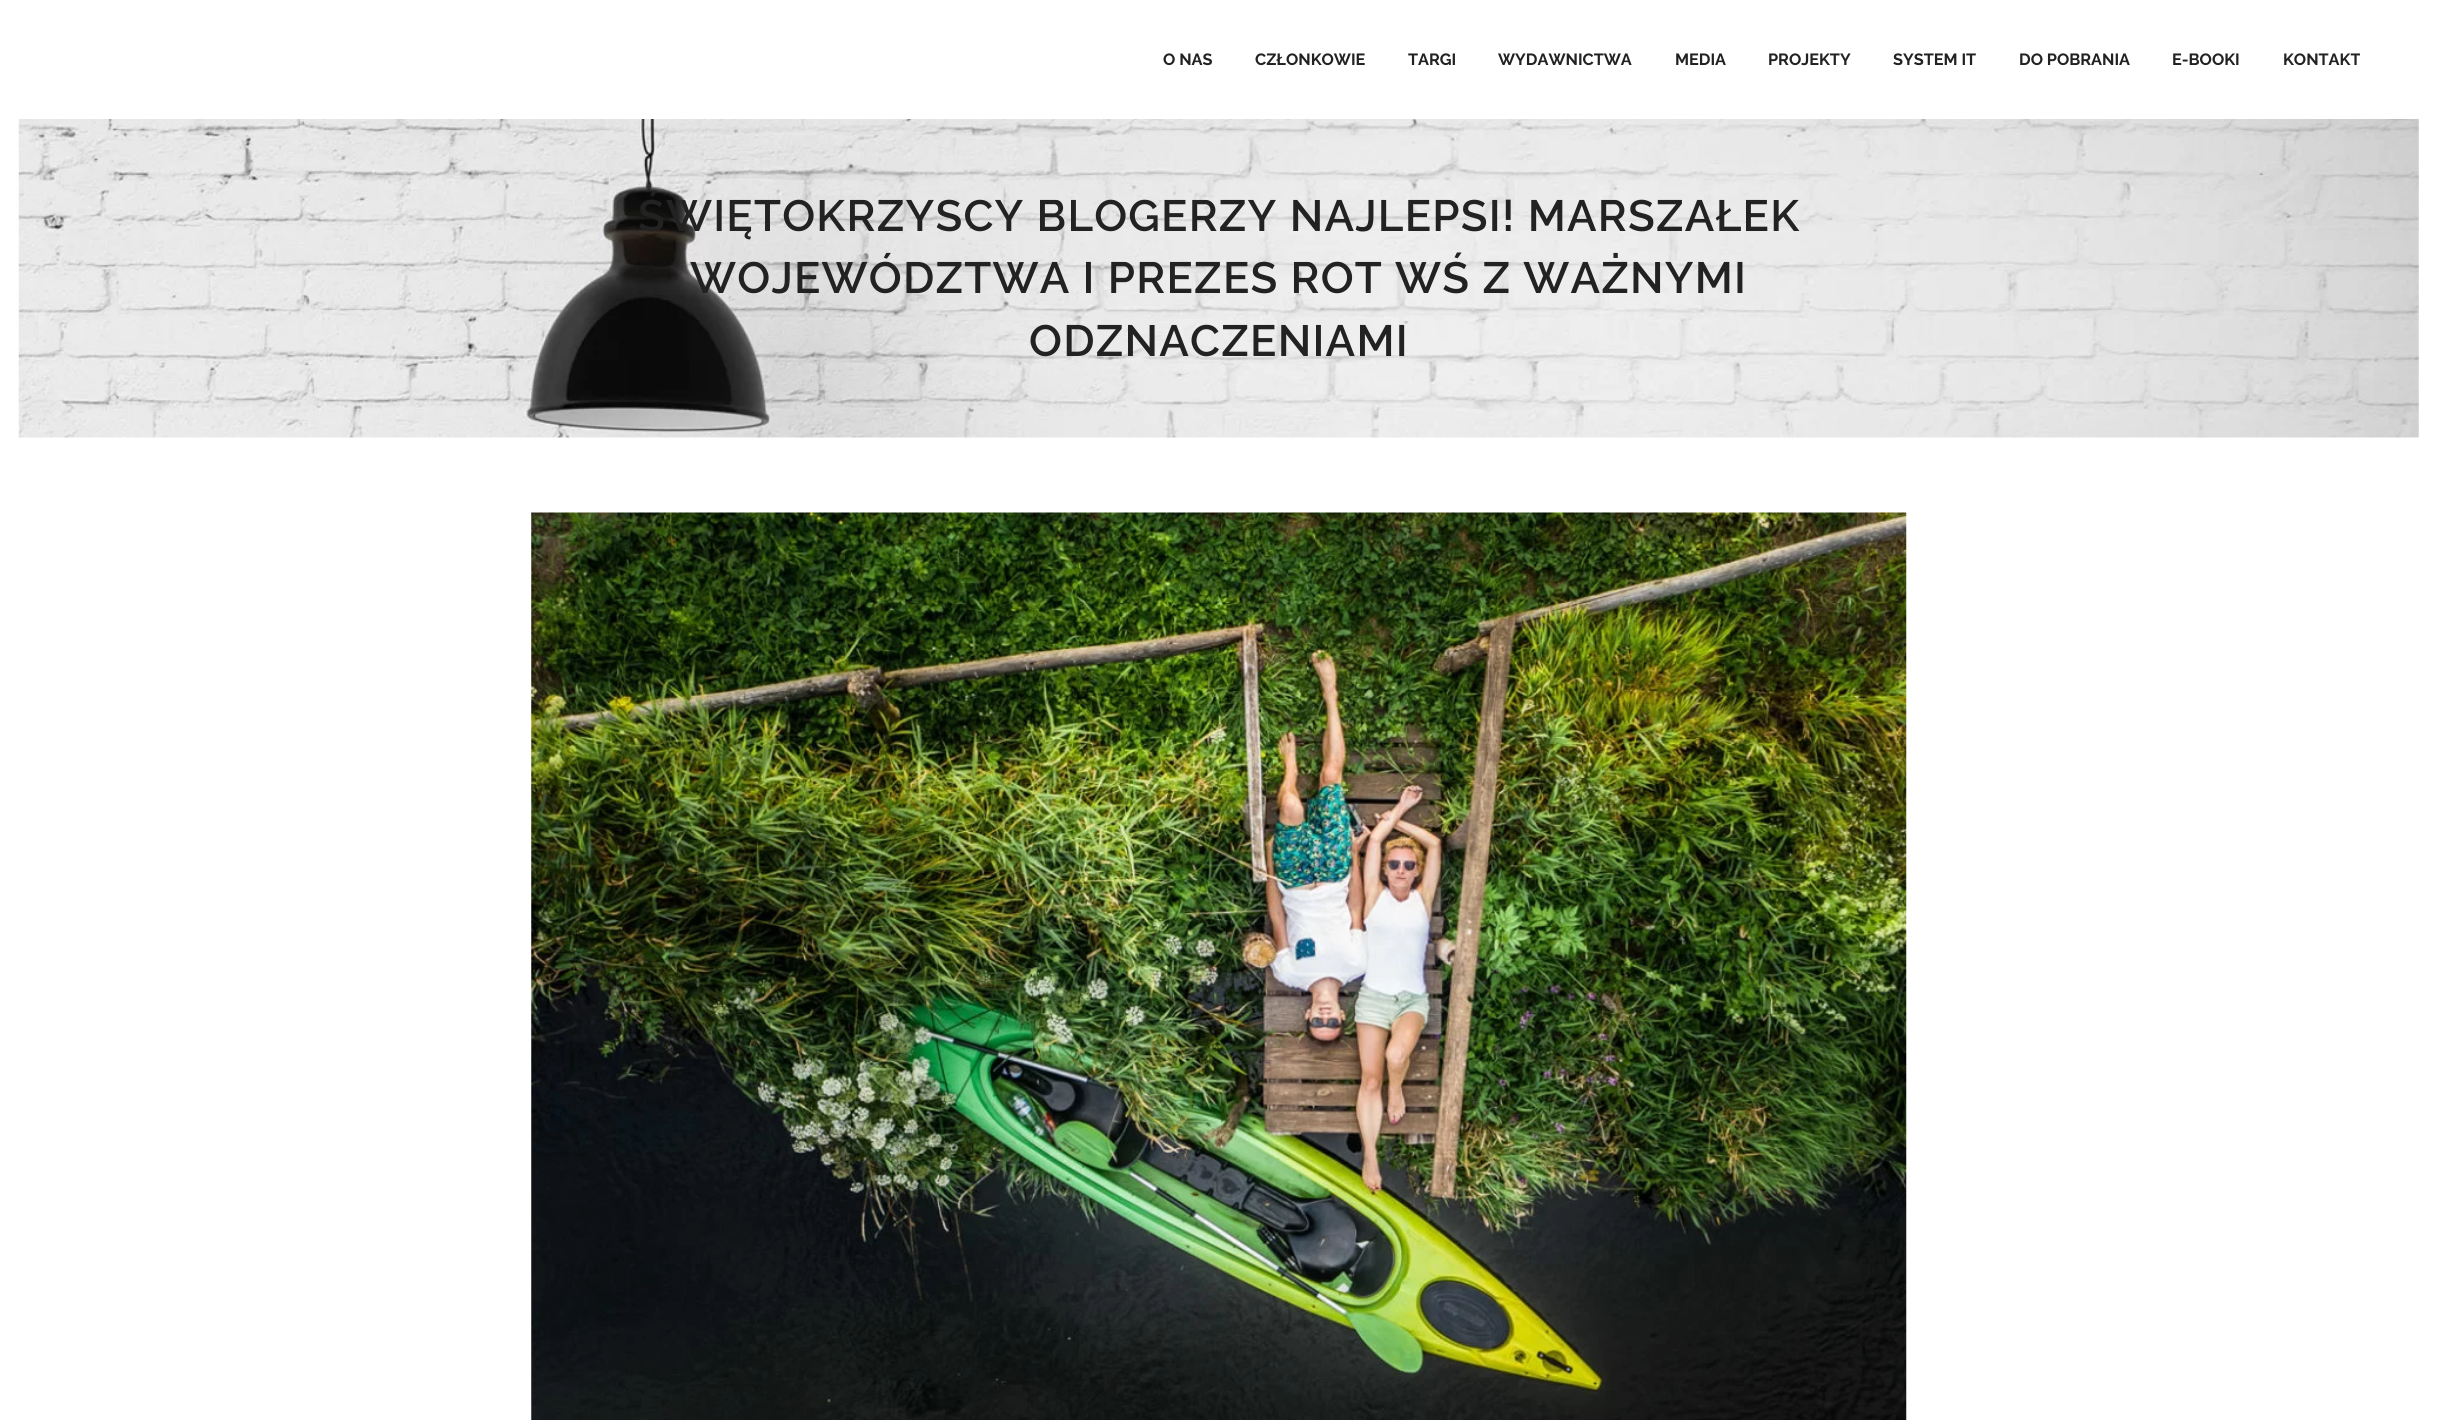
import math
import cairo

surface = cairo.ImageSurface(cairo.FORMAT_RGB24, 2437, 1420)
cr = cairo.Context(surface)
options = cairo.FontOptions()
options.set_hint_metrics(cairo.HINT_METRICS_OFF)
options.set_hint_style(cairo.HINT_STYLE_NONE)
cr.set_font_options(options)
cr.set_miter_limit(4)


def rgb(code):
    cr.set_source_rgb(*(v / 255 for v in bytes.fromhex(code[-6:])))


def tracked(x, y, s, letter, word):
    cr.move_to(x, y)
    for ch in s:
        cr.show_text(ch)
        cr.rel_move_to(letter + word * (ch == ' '), 0)


def image(path, x, y, w, h):
    cr.save()
    cr.set_source_surface(cairo.ImageSurface.create_from_png(path), x, y)
    cr.rectangle(x, y, w, h)
    cr.fill()
    cr.restore()


rgb("#ffffff")
cr.paint()
image("img/1.png", 18, 119, 2401, 319)
image("img/2.png", 531, 512, 1376, 908)
cr.select_font_face("Raleway", cairo.FONT_SLANT_NORMAL, cairo.FONT_WEIGHT_BOLD)
cr.set_font_size(16.25)
rgb("#222222")
for x, y, s in [
    (1163, 65, "O NAS"),
    (1255, 65, "CZŁONKOWIE"),
    (1408, 65, "TARGI"),
    (1498, 65, "WYDAWNICTWA"),
    (1675, 65, "MEDIA"),
    (1768, 65, "PROJEKTY"),
    (1893, 65, "SYSTEM IT"),
    (2019, 65, "DO POBRANIA"),
    (2172, 65, "E-BOOKI"),
    (2283, 65, "KONTAKT"),
]:
    cr.move_to(x, y)
    cr.show_text(s)
cr.select_font_face("Raleway SemiBold")
cr.set_font_size(43.75)
for x, y, s in [
    (638, 231, "ŚWIĘTOKRZYSCY BLOGERZY NAJLEPSI! MARSZAŁEK"),
    (690, 293, "WOJEWÓDZTWA I PREZES ROT WŚ Z WAŻNYMI"),
    (1029, 356, "ODZNACZENIAMI"),
]:
    tracked(x, y, s, 1.25, 0)
surface.write_to_png("page.png")
